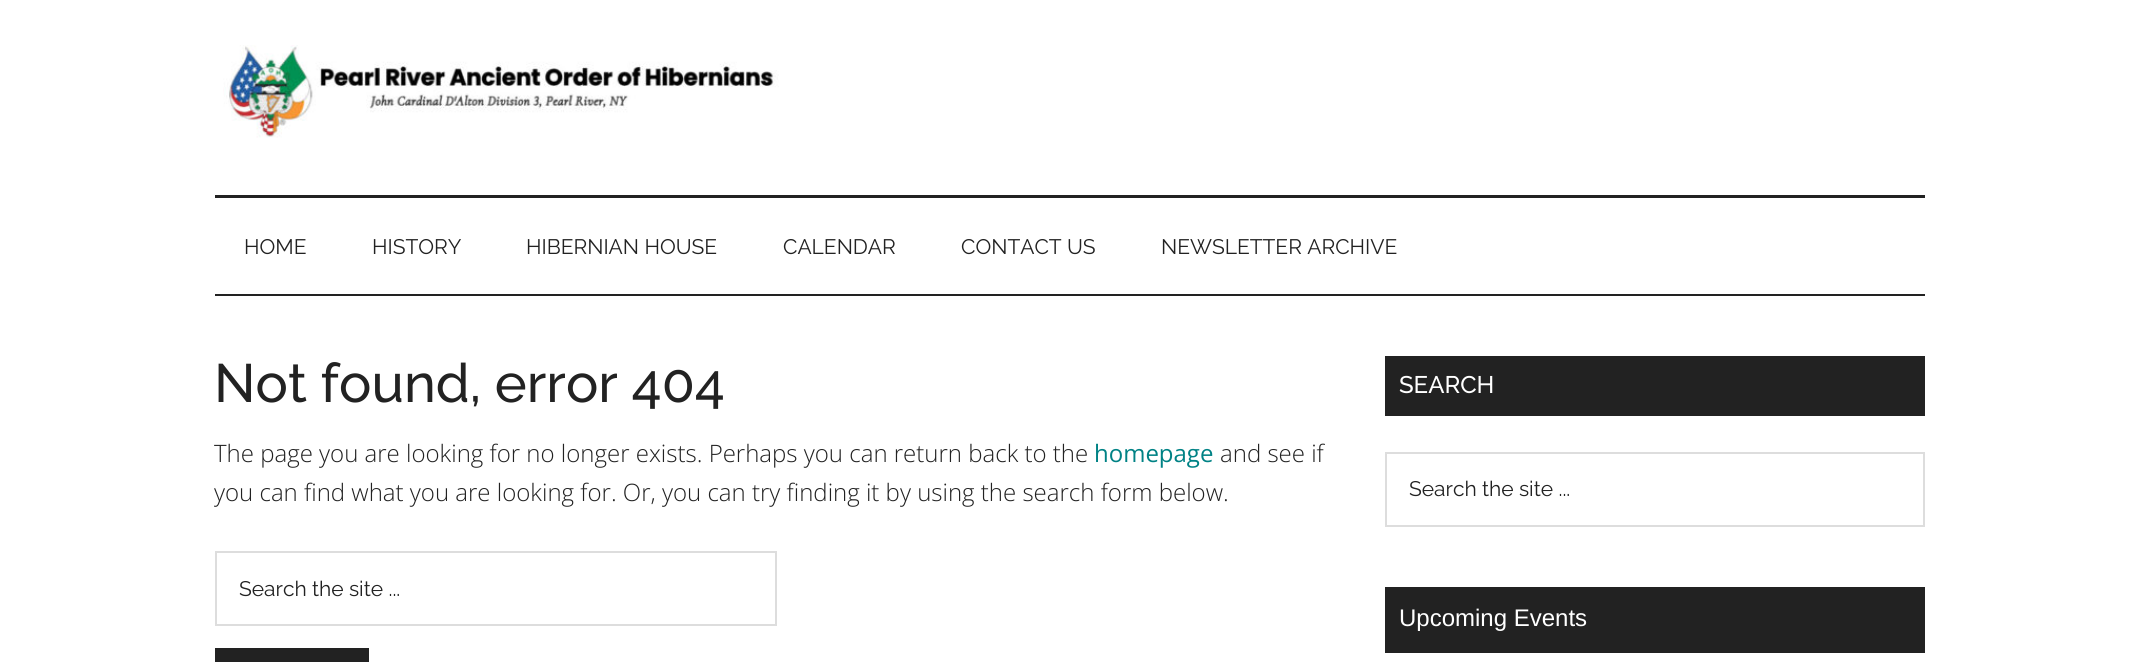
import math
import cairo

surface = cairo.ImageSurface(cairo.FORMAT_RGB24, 2137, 662)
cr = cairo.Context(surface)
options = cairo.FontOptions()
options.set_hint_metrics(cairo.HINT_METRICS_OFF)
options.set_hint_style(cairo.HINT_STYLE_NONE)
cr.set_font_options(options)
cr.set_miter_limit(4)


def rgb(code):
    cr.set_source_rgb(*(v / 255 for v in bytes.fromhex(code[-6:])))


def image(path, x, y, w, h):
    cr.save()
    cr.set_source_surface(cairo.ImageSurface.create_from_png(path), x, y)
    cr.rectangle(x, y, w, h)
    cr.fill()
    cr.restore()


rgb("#ffffff")
cr.paint()
rgb("#222222")
cr.rectangle(215, 195, 1710, 3)
cr.fill()
image("img/1.png", 223, 45, 556, 93)
cr.rectangle(215, 294, 1710, 2)
cr.fill()
cr.rectangle(216, 552, 560, 73)
rgb("#dddddd")
cr.stroke()
rgb("#222222")
cr.rectangle(215, 648, 154, 14)
cr.fill()
cr.rectangle(1385, 356, 540, 60)
cr.fill()
cr.rectangle(1386, 453, 538, 73)
rgb("#dddddd")
cr.stroke()
rgb("#222222")
cr.rectangle(1385, 587, 540, 66)
cr.fill()
cr.select_font_face("Raleway")
cr.set_font_size(21)
for x, y, s in [
    (244, 254, "HOME"),
    (372, 254, "HISTORY"),
    (526, 254, "HIBERNIAN HOUSE"),
    (783, 254, "CALENDAR"),
    (961, 254, "CONTACT US"),
    (1161, 254, "NEWSLETTER ARCHIVE"),
]:
    cr.move_to(x, y)
    cr.show_text(s)
cr.select_font_face("Raleway Medium")
cr.set_font_size(54)
cr.move_to(214, 402)
cr.show_text("Not found, error 404")
cr.select_font_face("Open Sans Light")
cr.set_font_size(24)
cr.move_to(214, 462)
cr.show_text("The page you are looking for no longer exists. Perhaps you can return back to the")
cr.select_font_face("Open Sans")
rgb("#008285")
cr.move_to(1094, 462)
cr.show_text("homepage")
cr.select_font_face("Open Sans Light")
rgb("#222222")
cr.move_to(1220, 462)
cr.show_text("and see if")
cr.move_to(214, 501)
cr.show_text("you can find what you are looking for. Or, you can try finding it by using the search form below.")
cr.select_font_face("Raleway")
cr.set_font_size(21)
cr.move_to(239, 596)
cr.show_text("Search the site ...")
cr.select_font_face("Raleway Medium")
cr.set_font_size(24)
rgb("#ffffff")
cr.move_to(1399, 393)
cr.show_text("SEARCH")
cr.select_font_face("Raleway")
cr.set_font_size(21)
rgb("#222222")
cr.move_to(1409, 496)
cr.show_text("Search the site ...")
cr.select_font_face("Liberation Sans")
cr.set_font_size(24)
rgb("#ffffff")
cr.move_to(1399, 626)
cr.show_text("Upcoming Events")
surface.write_to_png("page.png")
